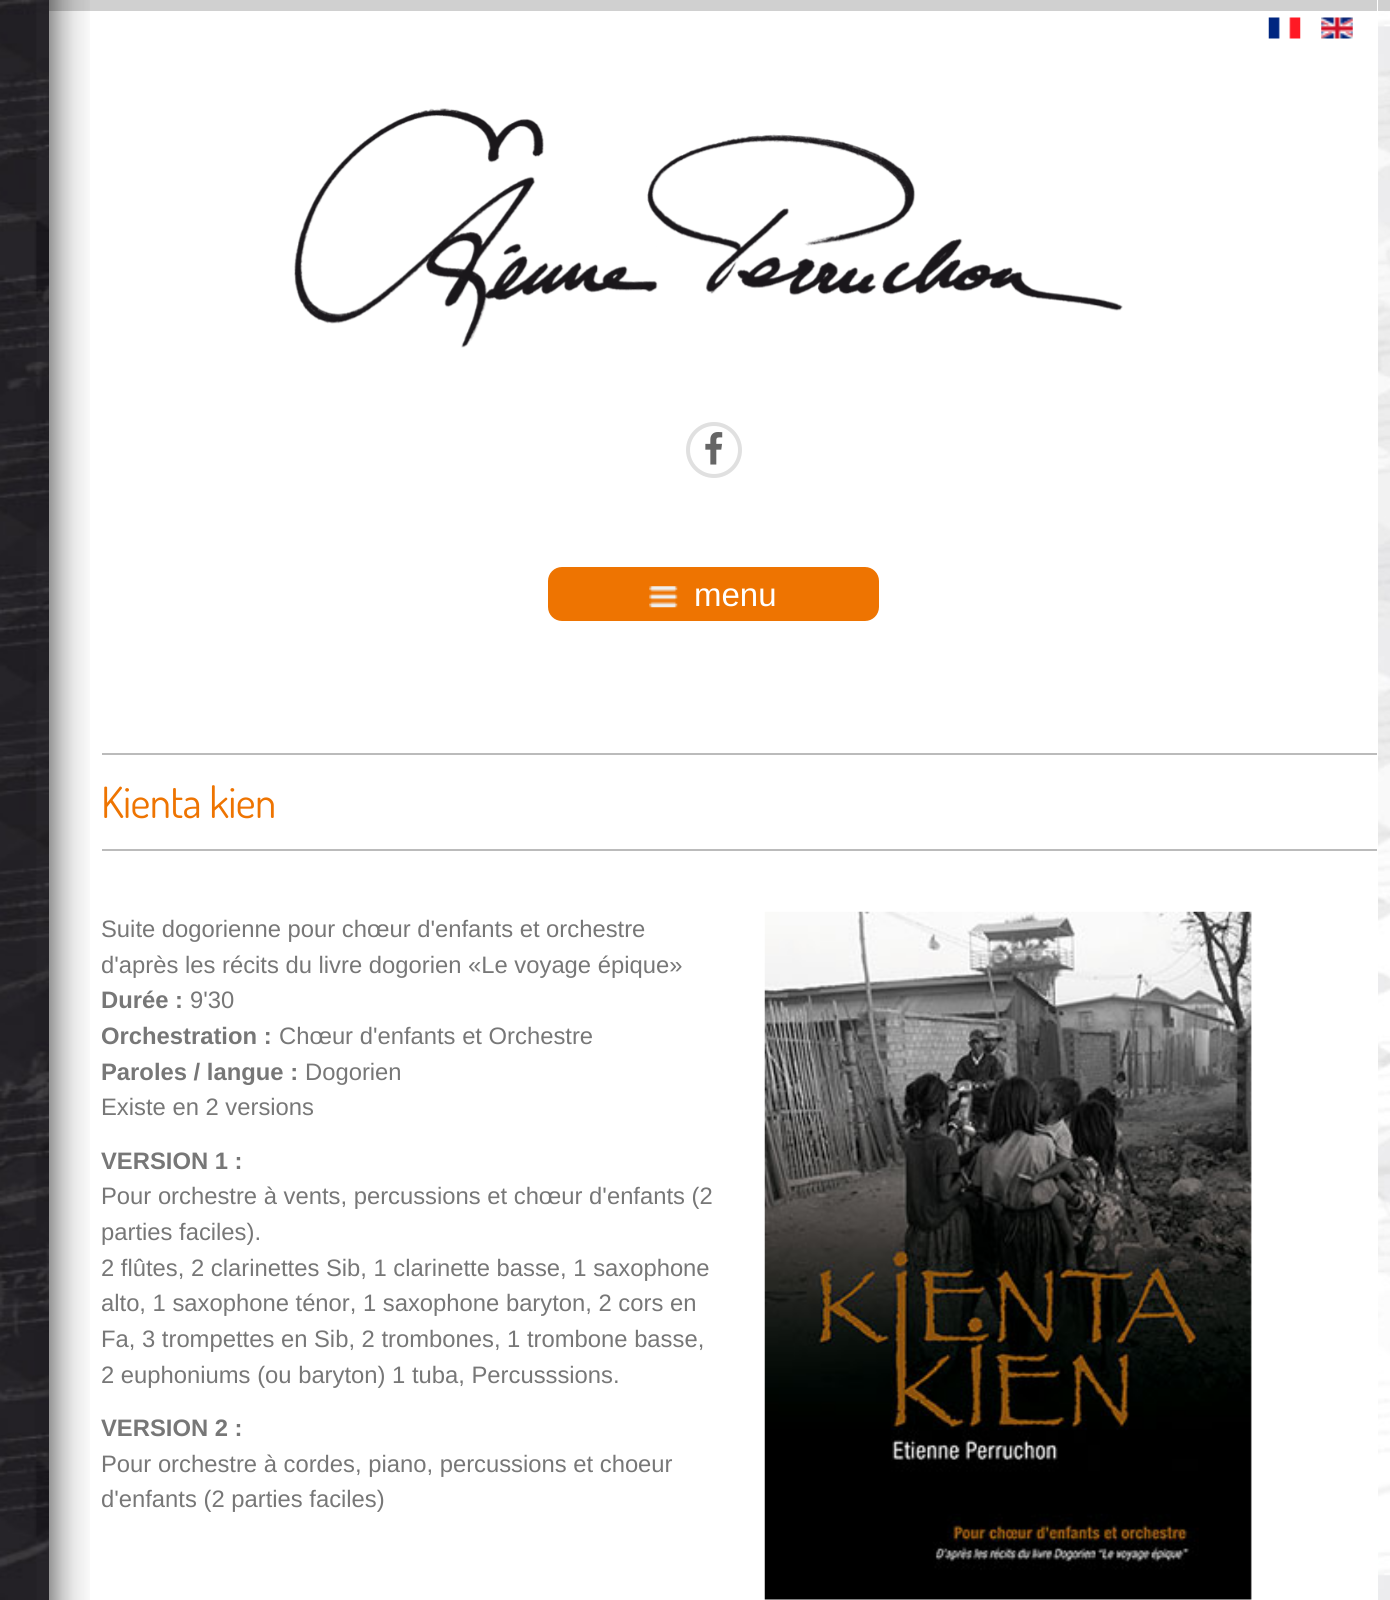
import math
import cairo

surface = cairo.ImageSurface(cairo.FORMAT_RGB24, 1390, 1600)
cr = cairo.Context(surface)
options = cairo.FontOptions()
options.set_hint_metrics(cairo.HINT_METRICS_OFF)
options.set_hint_style(cairo.HINT_STYLE_NONE)
cr.set_font_options(options)
cr.set_miter_limit(4)


def rgb(code):
    cr.set_source_rgb(*(v / 255 for v in bytes.fromhex(code[-6:])))


def tracked(x, y, s, letter, word):
    cr.move_to(x, y)
    for ch in s:
        cr.show_text(ch)
        cr.rel_move_to(letter + word * (ch == ' '), 0)


def rrect(x, y, w, h, r):
    cr.new_sub_path()
    for i, (u, v) in enumerate([(x + w - r, y + h - r), (x + r, y + h - r), (x + r, y + r), (x + w - r, y + r)]):
        cr.arc(u, v, r, i * math.pi / 2, (i + 1) * math.pi / 2)
    cr.close_path()


def image(path, x, y, w, h):
    cr.save()
    cr.set_source_surface(cairo.ImageSurface.create_from_png(path), x, y)
    cr.rectangle(x, y, w, h)
    cr.fill()
    cr.restore()


rgb("#ffffff")
cr.paint()
image("img/1.png", 1378, 11, 12, 1589)
image("img/2.png", 0, 0, 49, 1600)
rgb("#d0d0d0")
cr.rectangle(1378, 0, 12, 11)
cr.fill()
cr.rectangle(49, 0, 1328, 11)
cr.fill()
image("img/3.png", 1268, 17, 33, 22)
image("img/4.png", 1321, 17, 32, 22)
image("img/5.png", 294, 108, 829, 240)
image("img/6.png", 705, 432, 18, 33)
cr.arc(714, 450, 26, 0, 2 * math.pi)
rgb("#e0e0e0")
cr.set_line_width(4)
cr.stroke()
image("img/7.png", 49, 0, 41, 1600)
rgb("#ee7401")
rrect(548, 567, 331, 54, 14)
cr.fill()
image("img/8.png", 649, 586, 29, 22)
rgb("#bbbbbb")
cr.rectangle(102, 753, 1275, 2)
cr.fill()
cr.rectangle(102, 849, 1275, 2)
cr.fill()
image("img/9.png", 764, 911, 488, 689)
cr.select_font_face("Liberation Sans")
cr.set_font_size(33)
rgb("#ffffff")
cr.move_to(694, 606)
cr.show_text("menu")
cr.select_font_face("Dosis")
cr.set_font_size(43)
rgb("#ee7401")
tracked(101, 818, "Kienta kien", -0.5, 0)
cr.select_font_face("Liberation Sans")
cr.set_font_size(23.8)
rgb("#777777")
cr.move_to(101, 937)
cr.show_text("Suite dogorienne pour chœur d'enfants et orchestre")
cr.move_to(101, 973)
cr.show_text("d'après les récits du livre dogorien «Le voyage épique»")
cr.select_font_face("Liberation Sans", cairo.FONT_SLANT_NORMAL, cairo.FONT_WEIGHT_BOLD)
cr.move_to(101, 1008)
cr.show_text("Durée :")
cr.select_font_face("Liberation Sans")
cr.move_to(190, 1008)
cr.show_text("9'30")
cr.select_font_face("Liberation Sans", cairo.FONT_SLANT_NORMAL, cairo.FONT_WEIGHT_BOLD)
cr.move_to(101, 1044)
cr.show_text("Orchestration :")
cr.select_font_face("Liberation Sans")
cr.move_to(279, 1044)
cr.show_text("Chœur d'enfants et Orchestre")
cr.select_font_face("Liberation Sans", cairo.FONT_SLANT_NORMAL, cairo.FONT_WEIGHT_BOLD)
cr.move_to(101, 1080)
cr.show_text("Paroles / langue :")
cr.select_font_face("Liberation Sans")
cr.move_to(305, 1080)
cr.show_text("Dogorien")
cr.move_to(101, 1115)
cr.show_text("Existe en 2 versions")
cr.select_font_face("Liberation Sans", cairo.FONT_SLANT_NORMAL, cairo.FONT_WEIGHT_BOLD)
cr.move_to(101, 1169)
cr.show_text("VERSION 1 :")
cr.select_font_face("Liberation Sans")
for x, y, s in [
    (101, 1204, "Pour orchestre à vents, percussions et chœur d'enfants (2"),
    (101, 1240, "parties faciles)."),
    (101, 1276, "2 flûtes, 2 clarinettes Sib, 1 clarinette basse, 1 saxophone"),
    (101, 1311, "alto, 1 saxophone ténor, 1 saxophone baryton, 2 cors en"),
    (101, 1347, "Fa, 3 trompettes en Sib, 2 trombones, 1 trombone basse,"),
    (101, 1383, "2 euphoniums (ou baryton) 1 tuba, Percusssions."),
]:
    cr.move_to(x, y)
    cr.show_text(s)
cr.select_font_face("Liberation Sans", cairo.FONT_SLANT_NORMAL, cairo.FONT_WEIGHT_BOLD)
cr.move_to(101, 1436)
cr.show_text("VERSION 2 :")
cr.select_font_face("Liberation Sans")
cr.move_to(101, 1472)
cr.show_text("Pour orchestre à cordes, piano, percussions et choeur")
cr.move_to(101, 1507)
cr.show_text("d'enfants (2 parties faciles)")
surface.write_to_png("page.png")
